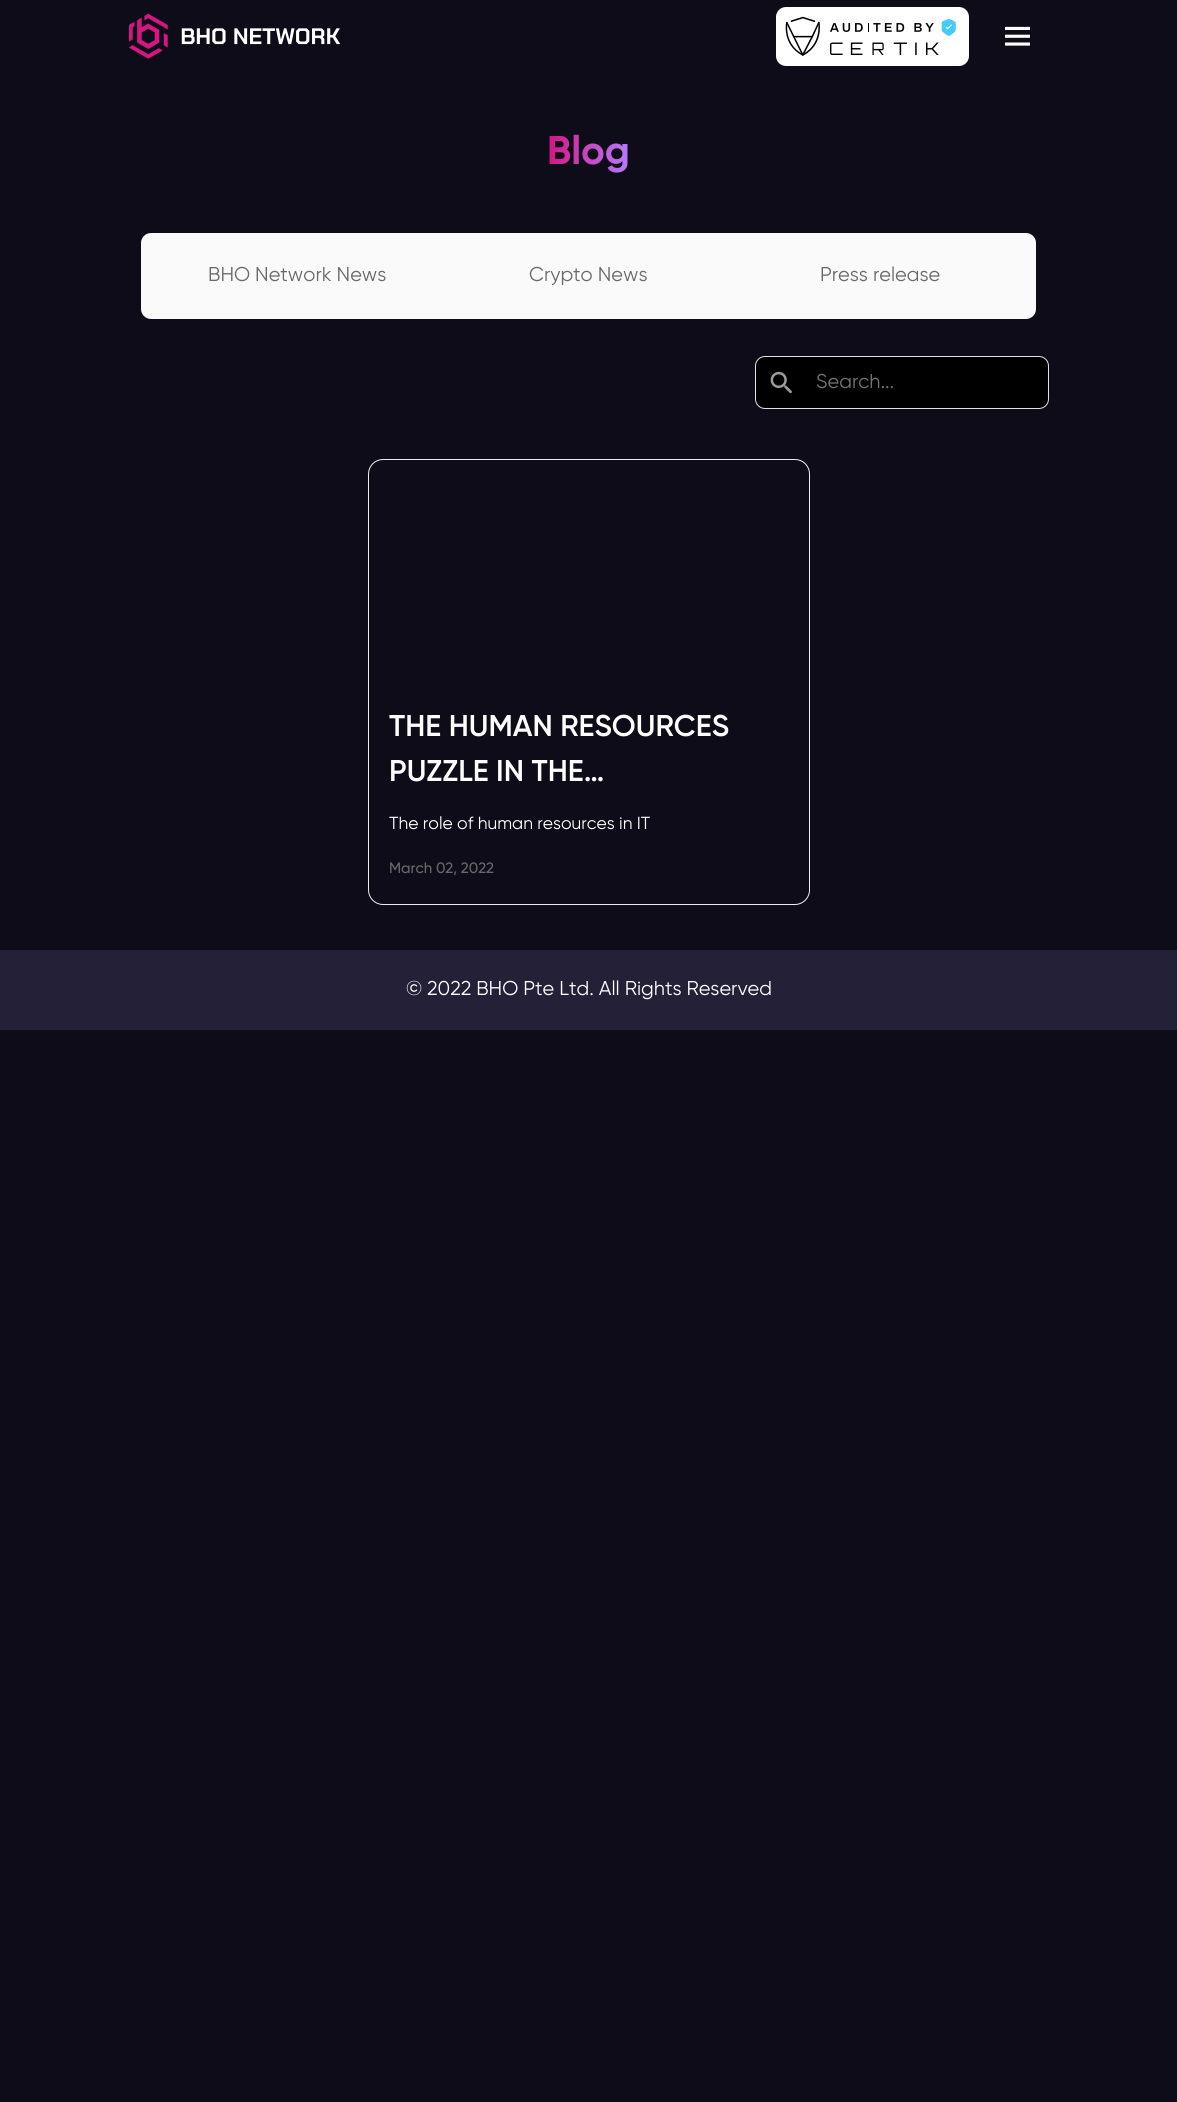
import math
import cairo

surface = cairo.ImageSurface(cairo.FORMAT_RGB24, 1177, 2102)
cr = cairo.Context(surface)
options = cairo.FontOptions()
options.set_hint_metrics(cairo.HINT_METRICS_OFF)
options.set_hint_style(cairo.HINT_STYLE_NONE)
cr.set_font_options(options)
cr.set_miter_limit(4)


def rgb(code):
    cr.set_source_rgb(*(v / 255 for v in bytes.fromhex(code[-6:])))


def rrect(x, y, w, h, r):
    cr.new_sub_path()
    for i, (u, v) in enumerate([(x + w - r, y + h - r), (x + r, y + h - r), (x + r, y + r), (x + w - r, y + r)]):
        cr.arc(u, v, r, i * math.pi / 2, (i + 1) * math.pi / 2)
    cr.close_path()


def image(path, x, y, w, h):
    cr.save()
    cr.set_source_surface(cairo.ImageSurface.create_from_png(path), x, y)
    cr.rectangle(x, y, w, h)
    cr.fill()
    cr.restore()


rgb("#0e0c18")
cr.paint()
image("img/1.png", 129, 14, 212, 45)
image("img/2.png", 776, 7, 193, 59)
image("img/3.png", 1005, 26, 25, 20)
rgb("#fafafa")
rrect(141, 233, 895, 86, 10)
cr.fill()
rgb("#000000")
rrect(755.5, 356.5, 293, 52, 9.5)
cr.fill_preserve()
rgb("#e2e2e6")
cr.set_line_width(1)
cr.stroke()
image("img/4.png", 770, 371, 22, 23)
rrect(368.5, 459.5, 441, 445, 14.5)
rgb("#ededed")
cr.stroke()
rgb("#242038")
cr.rectangle(0, 950, 1177, 80)
cr.fill()
cr.select_font_face("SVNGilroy", cairo.FONT_SLANT_NORMAL, cairo.FONT_WEIGHT_BOLD)
cr.set_font_size(40)
gradient = cairo.LinearGradient(547, 153, 630, 153)
gradient.add_color_stop_rgba(0, 0.831, 0.086, 0.506, 1)
gradient.add_color_stop_rgba(1, 0.718, 0.482, 1, 1)
cr.set_source(gradient)
cr.move_to(547, 164)
cr.show_text("Blog")
cr.select_font_face("SVNGilroy")
cr.set_font_size(20)
rgb("#696969")
for x, y, s in [
    (208, 281, "BHO Network News"),
    (529, 281, "Crypto News"),
    (820, 281, "Press release"),
]:
    cr.move_to(x, y)
    cr.show_text(s)
rgb("#757575")
cr.move_to(816, 388)
cr.show_text("Search...")
cr.select_font_face("SVNGilroy SemiBold")
cr.set_font_size(30)
rgb("#ffffff")
cr.move_to(389, 736)
cr.show_text("THE HUMAN RESOURCES")
cr.move_to(389, 781)
cr.show_text("PUZZLE IN THE…")
cr.select_font_face("SVNGilroy")
cr.set_font_size(17.5)
cr.move_to(389, 829)
cr.show_text("The role of human resources in IT")
cr.select_font_face("SVNGilroy Medium")
cr.set_font_size(15)
rgb("#696969")
cr.move_to(389, 873)
cr.show_text("March 02, 2022")
cr.select_font_face("SVNGilroy")
cr.set_font_size(20)
rgb("#ffffff")
cr.move_to(406, 995)
cr.show_text("© 2022 BHO Pte Ltd. All Rights Reserved")
surface.write_to_png("page.png")
